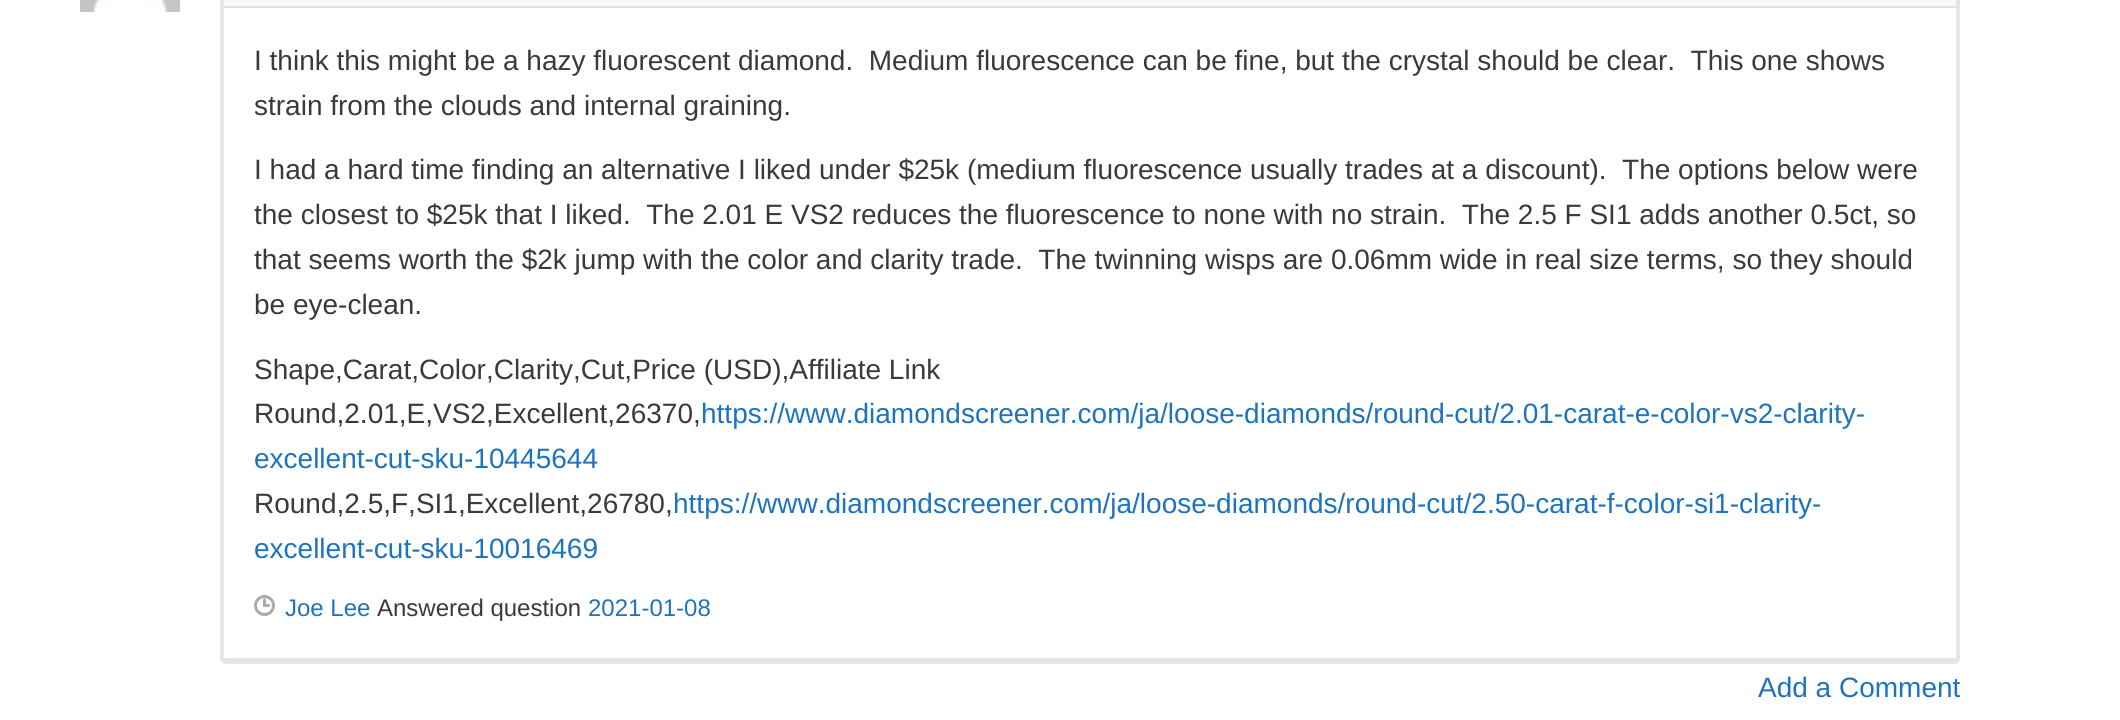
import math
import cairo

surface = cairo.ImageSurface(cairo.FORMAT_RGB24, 2120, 720)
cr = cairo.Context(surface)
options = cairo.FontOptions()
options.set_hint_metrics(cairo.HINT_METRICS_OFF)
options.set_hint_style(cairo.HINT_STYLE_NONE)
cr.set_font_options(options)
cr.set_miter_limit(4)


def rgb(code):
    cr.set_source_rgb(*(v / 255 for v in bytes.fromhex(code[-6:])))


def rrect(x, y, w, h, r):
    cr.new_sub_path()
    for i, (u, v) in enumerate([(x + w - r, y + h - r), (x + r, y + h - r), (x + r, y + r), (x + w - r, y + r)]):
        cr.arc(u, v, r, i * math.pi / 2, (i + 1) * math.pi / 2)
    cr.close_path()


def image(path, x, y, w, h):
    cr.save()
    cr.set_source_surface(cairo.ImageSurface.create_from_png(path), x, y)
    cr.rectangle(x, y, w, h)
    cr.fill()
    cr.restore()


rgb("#ffffff")
cr.paint()
image("img/1.png", 80, 0, 100, 12)
rrect(222, -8, 1736, 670, 4)
rgb("#e6e6e6")
cr.set_line_width(4)
cr.stroke()
rgb("#fafafa")
cr.rectangle(224, 0, 1732, 6)
cr.fill()
rgb("#e1e1e1")
cr.rectangle(224, 6, 1732, 2)
cr.fill()
image("img/2.png", 254, 595, 21, 21)
cr.set_source_rgba(0, 0, 0, 0.1)
cr.rectangle(224, 658, 1732, 2)
cr.fill()
cr.select_font_face("Liberation Sans")
cr.set_font_size(28)
rgb("#3a3a3a")
for x, y, s in [
    (254, 70, "I think this might be a hazy fluorescent diamond.  Medium fluorescence can be fine, but the crystal should be clear.  This one shows"),
    (254, 115, "strain from the clouds and internal graining."),
    (254, 179, "I had a hard time finding an alternative I liked under $25k (medium fluorescence usually trades at a discount).  The options below were"),
    (254, 224, "the closest to $25k that I liked.  The 2.01 E VS2 reduces the fluorescence to none with no strain.  The 2.5 F SI1 adds another 0.5ct, so"),
    (254, 269, "that seems worth the $2k jump with the color and clarity trade.  The twinning wisps are 0.06mm wide in real size terms, so they should"),
    (254, 314, "be eye-clean."),
    (254, 379, "Shape,Carat,Color,Clarity,Cut,Price (USD),Affiliate Link"),
    (254, 423, "Round,2.01,E,VS2,Excellent,26370,"),
]:
    cr.move_to(x, y)
    cr.show_text(s)
rgb("#1e73be")
cr.move_to(701, 423)
cr.show_text("https://www.diamondscreener.com/ja/loose-diamonds/round-cut/2.01-carat-e-color-vs2-clarity-")
cr.move_to(254, 468)
cr.show_text("excellent-cut-sku-10445644")
rgb("#3a3a3a")
cr.move_to(254, 513)
cr.show_text("Round,2.5,F,SI1,Excellent,26780,")
rgb("#1e73be")
cr.move_to(673, 513)
cr.show_text("https://www.diamondscreener.com/ja/loose-diamonds/round-cut/2.50-carat-f-color-si1-clarity-")
cr.move_to(254, 558)
cr.show_text("excellent-cut-sku-10016469")
cr.set_font_size(24)
cr.move_to(285, 616)
cr.show_text("Joe Lee")
rgb("#3a3a3a")
cr.move_to(377, 616)
cr.show_text("Answered question")
rgb("#1e73be")
cr.move_to(588, 616)
cr.show_text("2021-01-08")
cr.set_font_size(28)
cr.move_to(1758, 697)
cr.show_text("Add a Comment")
surface.write_to_png("page.png")
